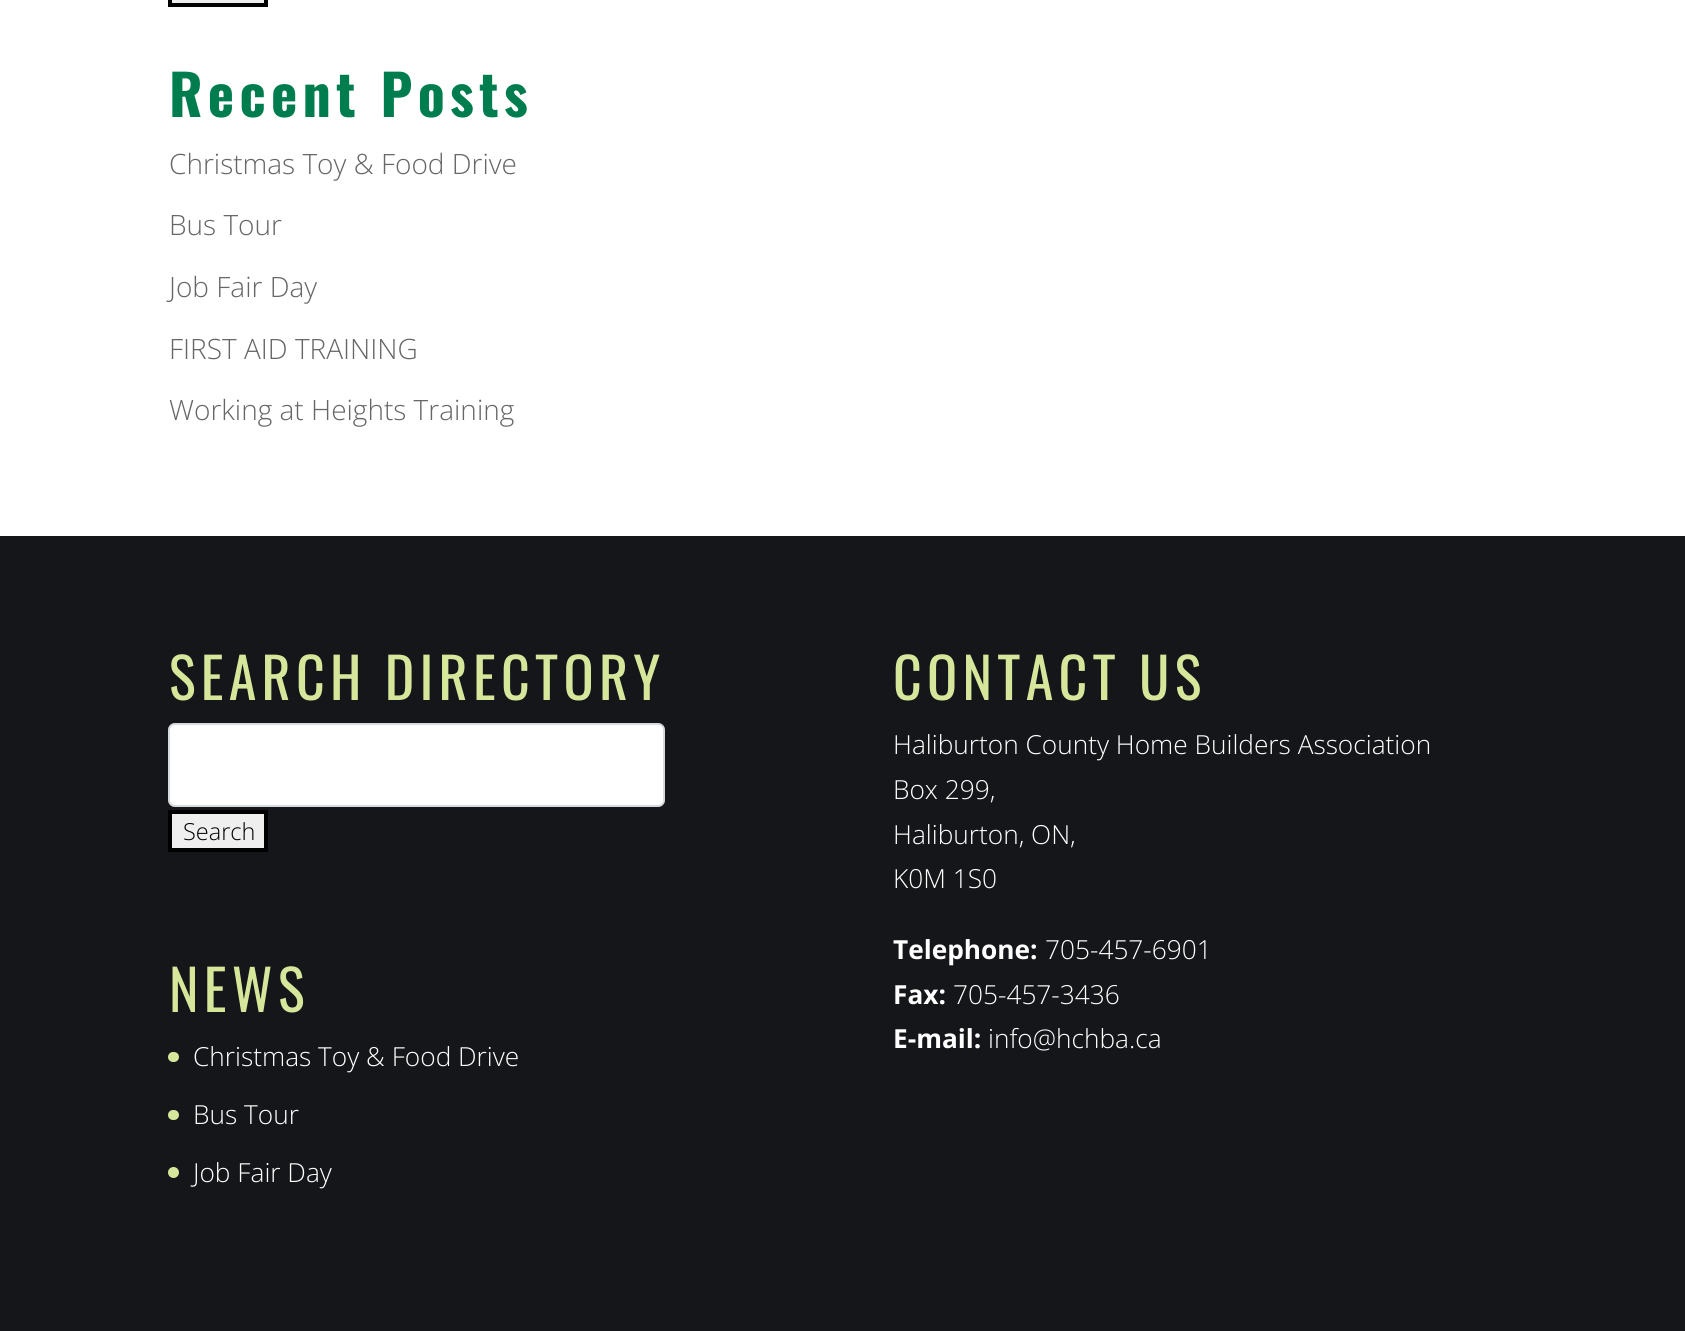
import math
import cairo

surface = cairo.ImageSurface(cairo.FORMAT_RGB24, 1685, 1331)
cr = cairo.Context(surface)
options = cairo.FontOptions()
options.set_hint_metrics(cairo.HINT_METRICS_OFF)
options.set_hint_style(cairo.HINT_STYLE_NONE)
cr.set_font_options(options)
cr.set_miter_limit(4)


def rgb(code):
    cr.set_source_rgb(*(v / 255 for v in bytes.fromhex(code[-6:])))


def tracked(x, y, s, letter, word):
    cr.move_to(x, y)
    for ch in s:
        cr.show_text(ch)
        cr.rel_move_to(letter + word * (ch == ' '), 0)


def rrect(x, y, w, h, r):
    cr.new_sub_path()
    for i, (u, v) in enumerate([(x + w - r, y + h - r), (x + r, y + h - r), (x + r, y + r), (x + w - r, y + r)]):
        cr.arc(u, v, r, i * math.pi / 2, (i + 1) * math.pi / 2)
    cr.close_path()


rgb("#ffffff")
cr.paint()
rgb("#efefef")
cr.rectangle(170, -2, 96, 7)
cr.fill_preserve()
rgb("#000000")
cr.set_line_width(4)
cr.stroke()
rgb("#151619")
cr.rectangle(0, 536, 1685, 795)
cr.fill()
rgb("#ffffff")
rrect(168, 723, 497, 84, 7)
cr.fill()
rrect(169, 724, 495, 82, 6)
cr.set_source_rgba(0.247, 0.294, 0.357, 0.2)
cr.set_line_width(2)
cr.stroke()
rgb("#efefef")
cr.rectangle(170, 812, 96, 38)
cr.fill_preserve()
rgb("#000000")
cr.set_line_width(4)
cr.stroke()
rgb("#d6e69b")
rrect(168, 1052, 11, 10, 5)
cr.fill()
rrect(168, 1110, 11, 10, 5)
cr.fill()
cr.arc(173.5, 1172.5, 5.5, 0, 2 * math.pi)
cr.fill()
cr.select_font_face("Oswald", cairo.FONT_SLANT_NORMAL, cairo.FONT_WEIGHT_BOLD)
cr.set_font_size(56)
rgb("#007d4f")
tracked(169, 117, "Recent Posts", 5.25, 0)
cr.select_font_face("Open Sans Light")
cr.set_font_size(28)
rgb("#666666")
for x, y, s in [
    (169, 174, "Christmas Toy & Food Drive"),
    (169, 235, "Bus Tour"),
    (169, 297, "Job Fair Day"),
    (169, 359, "FIRST AID TRAINING"),
    (169, 420, "Working at Heights Training"),
]:
    cr.move_to(x, y)
    cr.show_text(s)
cr.select_font_face("Oswald")
cr.set_font_size(56)
rgb("#d6e69b")
tracked(169, 700, "SEARCH DIRECTORY", 5.25, 0)
cr.select_font_face("Open Sans Light")
cr.set_font_size(23.5)
rgb("#000000")
cr.move_to(183, 840)
cr.show_text("Search")
cr.select_font_face("Oswald")
cr.set_font_size(56)
rgb("#d6e69b")
tracked(169, 1012, "NEWS", 5.25, 0)
cr.select_font_face("Open Sans Light")
cr.set_font_size(26.25)
rgb("#ffffff")
for x, y, s in [
    (193, 1066, "Christmas Toy & Food Drive"),
    (193, 1124, "Bus Tour"),
    (193, 1182, "Job Fair Day"),
]:
    cr.move_to(x, y)
    cr.show_text(s)
cr.select_font_face("Oswald")
cr.set_font_size(56)
rgb("#d6e69b")
tracked(893, 700, "CONTACT US", 5.25, 0)
cr.select_font_face("Open Sans Light")
cr.set_font_size(26.25)
rgb("#ffffff")
for x, y, s in [
    (893, 754, "Haliburton County Home Builders Association"),
    (893, 799, "Box 299,"),
    (893, 844, "Haliburton, ON,"),
    (893, 888, "K0M 1S0"),
]:
    cr.move_to(x, y)
    cr.show_text(s)
cr.select_font_face("Open Sans", cairo.FONT_SLANT_NORMAL, cairo.FONT_WEIGHT_BOLD)
cr.move_to(893, 959)
cr.show_text("Telephone:")
cr.select_font_face("Open Sans Light")
cr.move_to(1045, 959)
cr.show_text("705-457-6901")
cr.select_font_face("Open Sans", cairo.FONT_SLANT_NORMAL, cairo.FONT_WEIGHT_BOLD)
cr.move_to(893, 1004)
cr.show_text("Fax:")
cr.select_font_face("Open Sans Light")
cr.move_to(953, 1004)
cr.show_text("705-457-3436")
cr.select_font_face("Open Sans", cairo.FONT_SLANT_NORMAL, cairo.FONT_WEIGHT_BOLD)
cr.move_to(893, 1048)
cr.show_text("E-mail:")
cr.select_font_face("Open Sans Light")
cr.move_to(988, 1048)
cr.show_text("info@hchba.ca")
surface.write_to_png("page.png")
